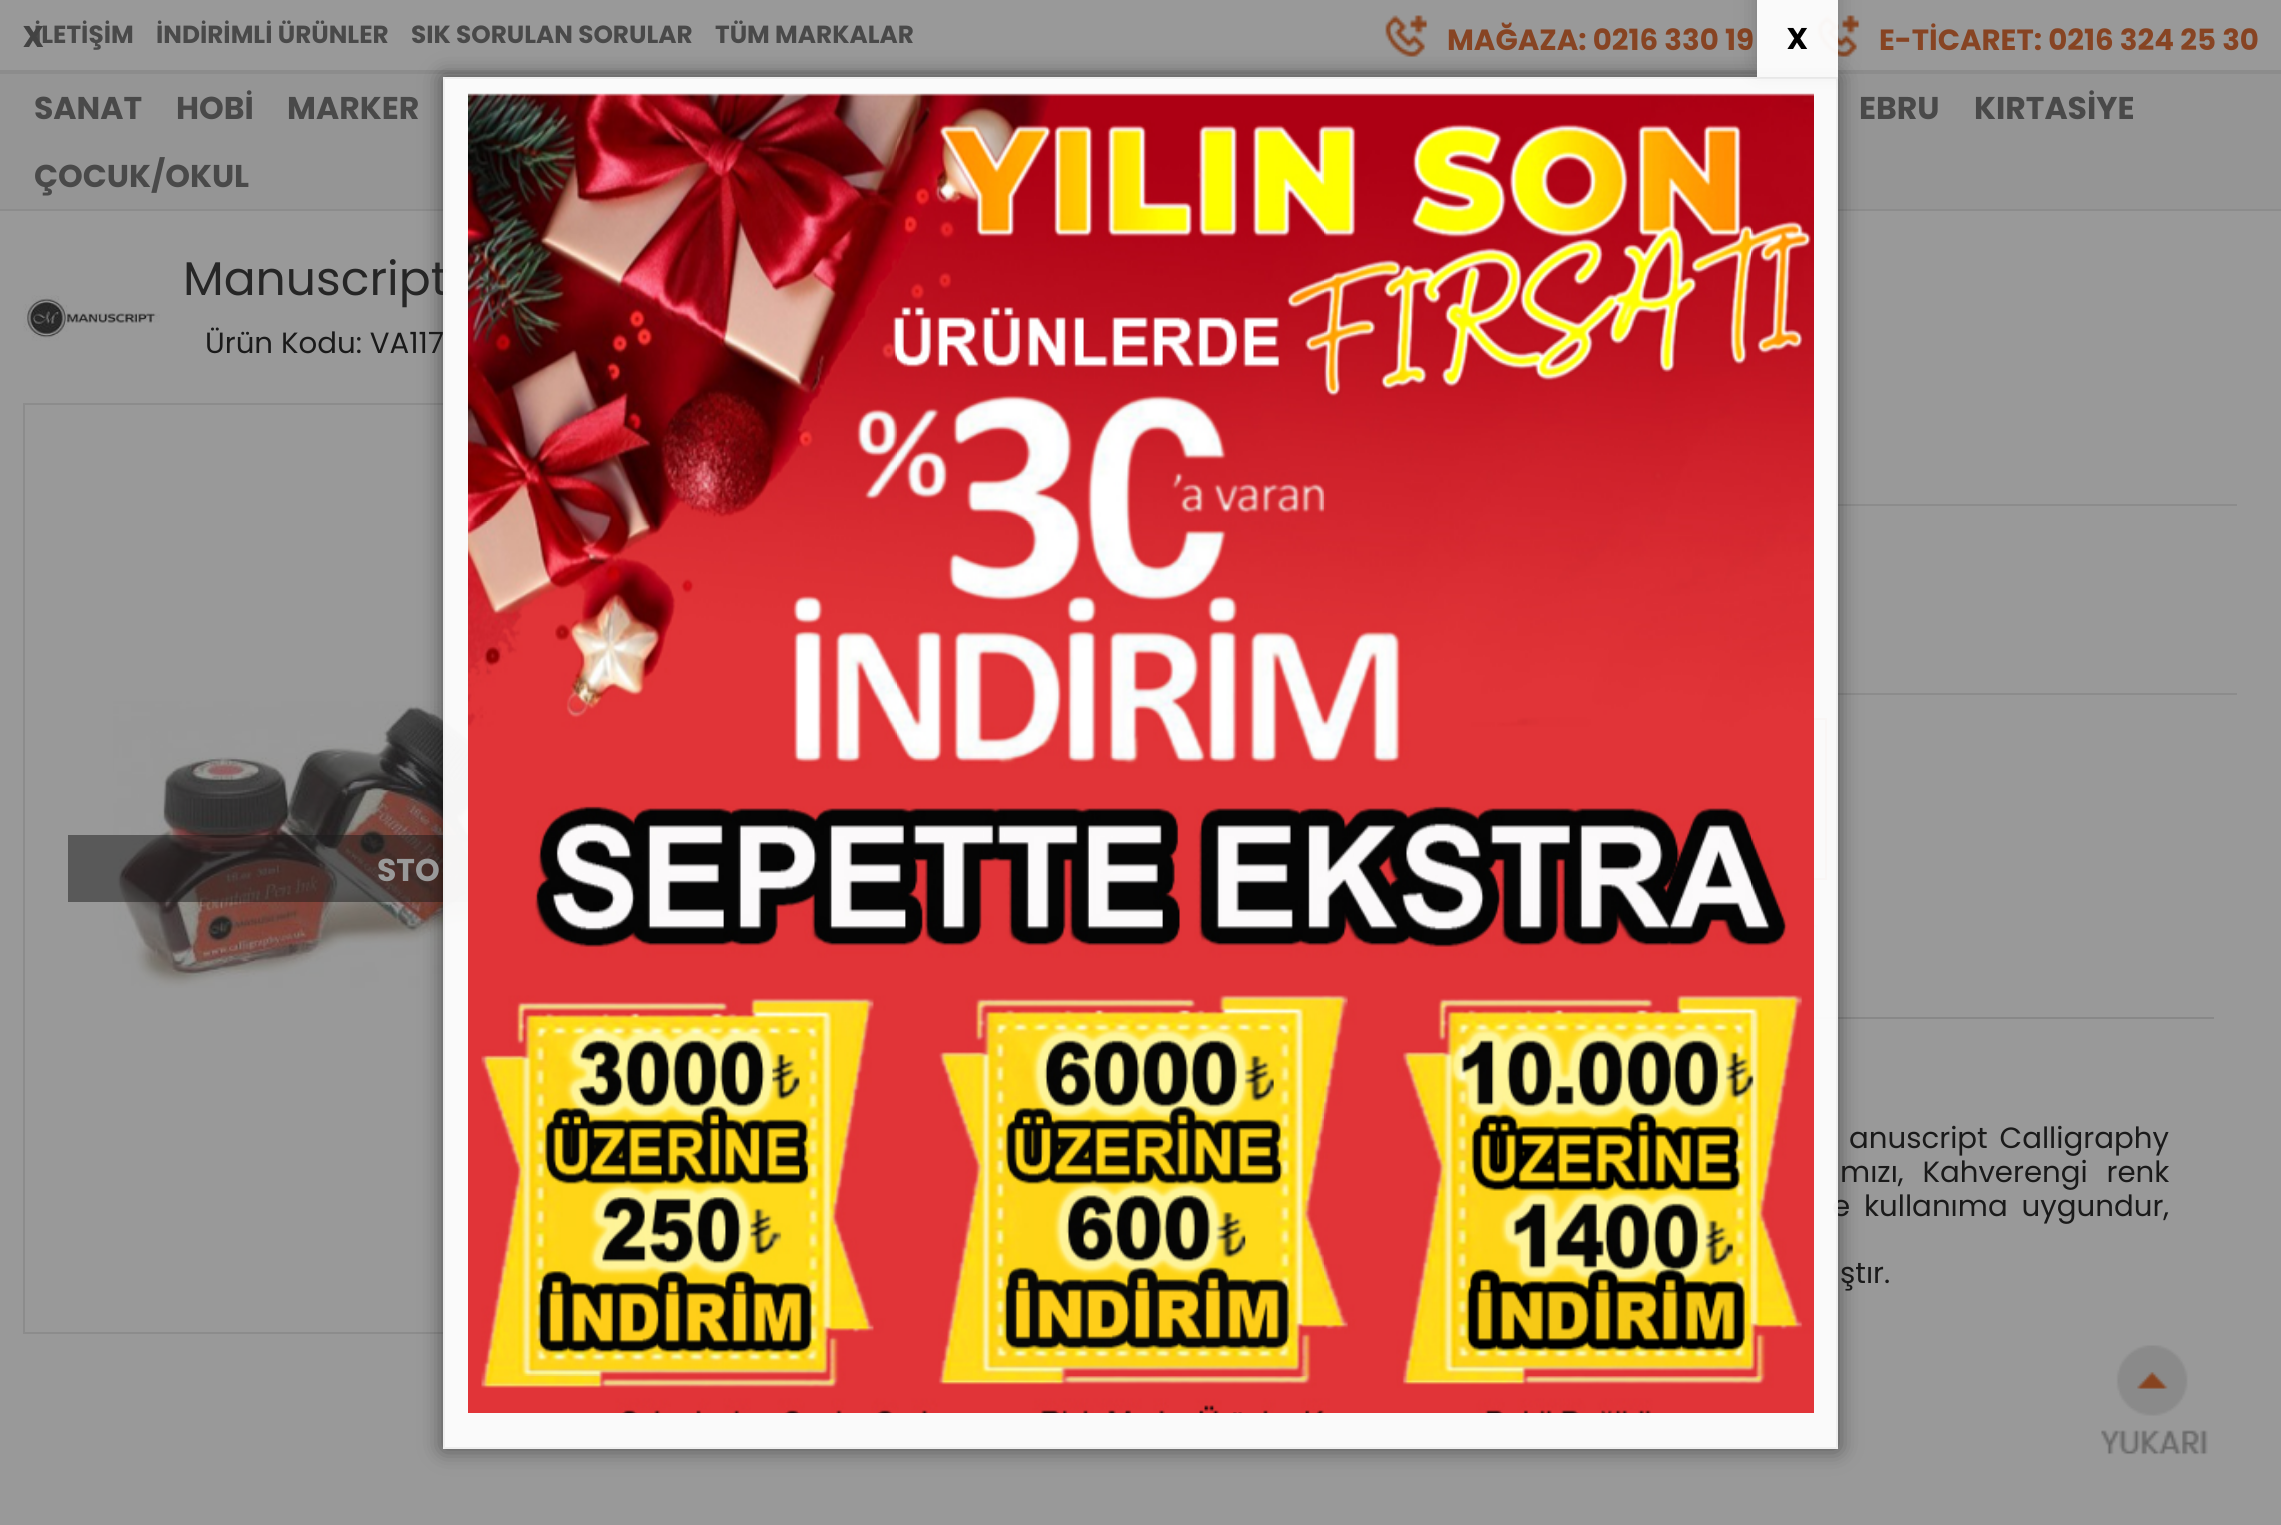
import math
import cairo

surface = cairo.ImageSurface(cairo.FORMAT_RGB24, 2281, 1525)
cr = cairo.Context(surface)
options = cairo.FontOptions()
options.set_hint_metrics(cairo.HINT_METRICS_OFF)
options.set_hint_style(cairo.HINT_STYLE_NONE)
cr.set_font_options(options)
cr.set_miter_limit(4)


def rgb(code):
    cr.set_source_rgb(*(v / 255 for v in bytes.fromhex(code[-6:])))


def tracked(x, y, s, letter, word):
    cr.move_to(x, y)
    for ch in s:
        cr.show_text(ch)
        cr.rel_move_to(letter + word * (ch == ' '), 0)


def rrect(x, y, w, h, r):
    cr.new_sub_path()
    for i, (u, v) in enumerate([(x + w - r, y + h - r), (x + r, y + h - r), (x + r, y + r), (x + w - r, y + r)]):
        cr.arc(u, v, r, i * math.pi / 2, (i + 1) * math.pi / 2)
    cr.close_path()


def soft_shadow(x, y, w, h, r, blur, alpha):
    cr.push_group_with_content(cairo.CONTENT_ALPHA)
    cr.set_operator(cairo.OPERATOR_SOURCE)
    for i in range(15, -16, -2):
        e = blur * i / 6
        if min(w, h) + 2 * e > 0:
            cr.set_source_rgba(0, 0, 0, alpha * math.erfc((i - 1) / 8.5) / 2)
            rrect(x - e, y - e, w + 2 * e, h + 2 * e, max(0, min(r + e + blur * .6, min(w, h) / 2 + e)))
            cr.fill()
    cr.mask(cr.pop_group())


def image(path, x, y, w, h):
    cr.save()
    cr.set_source_surface(cairo.ImageSurface.create_from_png(path), x, y)
    cr.rectangle(x, y, w, h)
    cr.fill()
    cr.restore()


rgb("#999999")
cr.paint()
rgb("#8c8c8c")
cr.rectangle(0, 209, 2281, 2)
cr.fill()
cr.rectangle(0, 70, 2281, 4)
cr.fill()
image("img/1.png", 1385, 15, 43, 42)
image("img/1.png", 1817, 15, 43, 42)
rgb("#959595")
cr.rectangle(0, 74, 2281, 135)
cr.fill()
image("img/2.png", 2101, 1345, 107, 110)
image("img/3.png", 23, 295, 137, 46)
cr.rectangle(24, 404, 907, 929)
rgb("#8c8c8c")
cr.stroke()
image("img/4.png", 113, 701, 355, 287)
cr.set_source_rgba(0.102, 0.102, 0.102, 0.5)
cr.rectangle(68, 835, 400, 67)
cr.fill()
rgb("#8c8c8c")
cr.rectangle(1814, 504, 423, 2)
cr.rectangle(1814, 693, 423, 2)
cr.fill()
cr.rectangle(1542, 719, 284, 160)
rgb("#874423")
cr.stroke()
for x, y, w, h, color in [
    (1814, 1017, 400, 2, "#888888"),
    (1814, 925, 4, 2, "#888888"),
    (1816, 925, 2, 92, "#888888"),
]:
    rgb(color)
    cr.rectangle(x, y, w, h)
    cr.fill()
cr.save()
cr.set_fill_rule(cairo.FILL_RULE_EVEN_ODD)
cr.new_path()
cr.move_to(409, 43)
cr.line_to(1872, 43)
cr.line_to(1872, 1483)
cr.line_to(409, 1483)
cr.close_path()
cr.move_to(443, 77)
cr.line_to(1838, 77)
cr.line_to(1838, 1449)
cr.line_to(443, 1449)
cr.close_path()
cr.clip()
rgb("#000000")
soft_shadow(443, 77, 1395, 1372, 0, 11, 0.5)
cr.restore()
cr.select_font_face("Poppins", cairo.FONT_SLANT_NORMAL, cairo.FONT_WEIGHT_BOLD)
cr.set_font_size(24.75)
rgb("#494949")
for x, y, s in [
    (34, 43, "İLETİŞİM"),
    (156, 43, "İNDİRİMLİ ÜRÜNLER"),
    (411, 43, "SIK SORULAN SORULAR"),
    (715, 43, "TÜM MARKALAR"),
]:
    cr.move_to(x, y)
    cr.show_text(s)
cr.set_font_size(29.25)
rgb("#874423")
cr.move_to(1447, 50)
cr.show_text("MAĞAZA: 0216 330 19")
cr.move_to(1879, 50)
cr.show_text("E-TİCARET: 0216 324 25 30")
cr.set_font_size(31.5)
rgb("#494949")
for x, y, s in [
    (34, 119, "SANAT"),
    (176, 119, "HOBİ"),
    (287, 119, "MARKER"),
    (1859, 119, "EBRU"),
    (1974, 119, "KIRTASİYE"),
    (34, 187, "ÇOCUK/OKUL"),
]:
    cr.move_to(x, y)
    cr.show_text(s)
cr.select_font_face("Poppins")
cr.set_font_size(47.25)
rgb("#262626")
cr.move_to(183, 295)
cr.show_text("Manuscript")
cr.set_font_size(29.25)
rgb("#1a1a1a")
cr.move_to(205, 353)
cr.show_text("Ürün Kodu: VA117")
cr.select_font_face("Poppins", cairo.FONT_SLANT_NORMAL, cairo.FONT_WEIGHT_BOLD)
cr.set_font_size(31.5)
rgb("#999999")
cr.move_to(377, 881)
cr.show_text("STO")
cr.select_font_face("Poppins")
cr.set_font_size(29.25)
rgb("#1a1a1a")
tracked(1849, 1148, "anuscript Calligraphy", 0, 4)
tracked(1840, 1182, "mızı, Kahverengi renk", 0, 11)
tracked(1832, 1216, "e kullanıma uygundur,", 0, 6)
cr.move_to(1840, 1283)
cr.show_text("ştır.")
cr.select_font_face("Poppins SemiBold")
cr.set_font_size(38)
rgb("#434343")
cr.move_to(23, 47)
cr.show_text("x")
cr.set_source_rgba(1, 1, 1, 0.95)
cr.rectangle(444, 78, 1393, 1370)
cr.fill_preserve()
rgb("#eeeeee")
cr.stroke()
image("img/5.png", 468, 93, 1346, 1320)
cr.save()
cr.set_fill_rule(cairo.FILL_RULE_EVEN_ODD)
cr.new_path()
cr.move_to(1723, 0)
cr.line_to(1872, 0)
cr.line_to(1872, 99)
cr.line_to(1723, 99)
cr.close_path()
cr.move_to(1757, -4)
cr.line_to(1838, -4)
cr.line_to(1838, 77)
cr.line_to(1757, 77)
cr.close_path()
cr.clip()
rgb("#000000")
soft_shadow(1757, -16, 81, 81, 0, 11, 0.2)
cr.restore()
cr.set_source_rgba(1, 1, 1, 0.95)
cr.rectangle(1757, 0, 81, 77)
cr.fill()
rgb("#000000")
cr.move_to(1787, 49)
cr.show_text("x")
surface.write_to_png("page.png")
